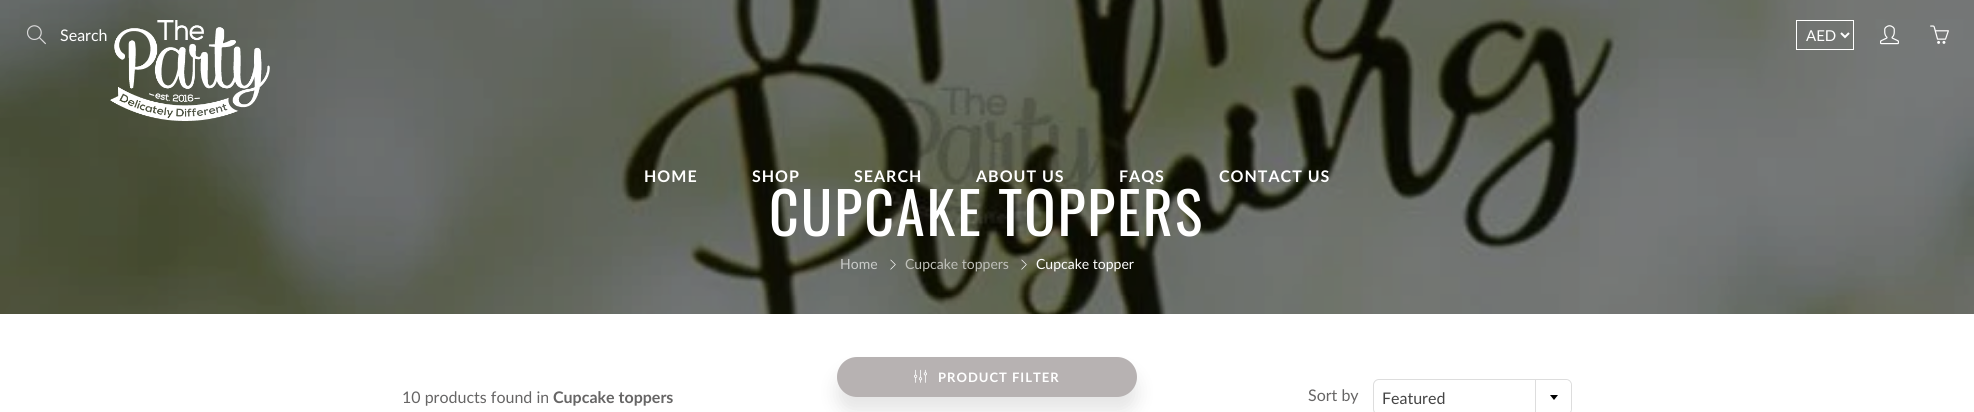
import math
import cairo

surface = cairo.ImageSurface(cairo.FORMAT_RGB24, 1974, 412)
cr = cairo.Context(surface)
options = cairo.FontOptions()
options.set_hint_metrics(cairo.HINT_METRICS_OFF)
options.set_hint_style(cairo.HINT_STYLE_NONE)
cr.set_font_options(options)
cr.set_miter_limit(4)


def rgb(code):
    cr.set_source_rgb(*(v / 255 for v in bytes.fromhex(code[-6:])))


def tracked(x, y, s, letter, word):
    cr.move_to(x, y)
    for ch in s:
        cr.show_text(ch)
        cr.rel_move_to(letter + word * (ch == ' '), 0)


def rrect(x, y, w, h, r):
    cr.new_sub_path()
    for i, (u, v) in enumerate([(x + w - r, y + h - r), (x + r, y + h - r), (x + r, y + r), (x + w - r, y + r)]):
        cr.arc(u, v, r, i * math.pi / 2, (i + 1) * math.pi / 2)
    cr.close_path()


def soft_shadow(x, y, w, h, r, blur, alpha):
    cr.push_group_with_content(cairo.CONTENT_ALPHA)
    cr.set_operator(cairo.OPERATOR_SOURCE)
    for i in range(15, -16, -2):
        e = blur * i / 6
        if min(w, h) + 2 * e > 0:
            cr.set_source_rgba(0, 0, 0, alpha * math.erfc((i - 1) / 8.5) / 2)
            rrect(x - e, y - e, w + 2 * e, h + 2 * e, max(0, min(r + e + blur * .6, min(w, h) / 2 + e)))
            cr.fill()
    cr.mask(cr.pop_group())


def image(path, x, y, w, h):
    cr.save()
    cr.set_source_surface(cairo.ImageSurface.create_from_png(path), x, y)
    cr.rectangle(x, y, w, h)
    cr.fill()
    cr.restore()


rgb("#ffffff")
cr.paint()
image("img/5.png", 0, 0, 1974, 314)
image("img/1.png", 27, 25, 19, 20)
image("img/2.png", 110, 20, 160, 101)
cr.rectangle(1796.5, 20.5, 57, 29)
rgb("#ffffff")
cr.set_line_width(1)
cr.stroke()
cr.new_path()
cr.move_to(1841, 33)
cr.line_to(1845, 37)
cr.line_to(1849, 33)
cr.set_line_width(2)
cr.stroke()
image("img/3.png", 1880, 25, 19, 20)
image("img/4.png", 1930, 25, 19, 19)
image("img/6.png", 890, 259, 6, 11)
image("img/7.png", 1021, 259, 6, 11)
rgb("#000000")
soft_shadow(837, 372, 300, 40, 20, 9, 0.1)
rgb("#b7b2b2")
rrect(837, 357, 300, 40, 20)
cr.fill()
image("img/8.png", 914, 369, 13, 14)
rrect(1373.5, 379.5, 198, 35, 5.5)
rgb("#dddddd")
cr.set_line_width(1)
cr.stroke()
rgb("#ffffff")
cr.new_path()
cr.move_to(1535, 380)
cr.line_to(1565, 380)
cr.curve_to(1568.5, 380, 1571, 382.5, 1571, 386)
cr.line_to(1571, 408)
cr.curve_to(1571, 411.5, 1568.5, 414, 1565, 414)
cr.line_to(1535, 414)
cr.close_path()
cr.fill()
rgb("#dddddd")
cr.rectangle(1535, 380, 1, 32)
cr.fill()
rgb("#000000")
cr.new_path()
cr.move_to(1550, 395)
cr.line_to(1558, 395)
cr.line_to(1554, 400)
cr.close_path()
cr.fill()
cr.select_font_face("Lato")
cr.set_font_size(16)
rgb("#ffffff")
cr.move_to(60, 41)
cr.show_text("Search")
cr.set_font_size(15)
cr.move_to(1806, 41)
cr.show_text("AED")
cr.select_font_face("Lato", cairo.FONT_SLANT_NORMAL, cairo.FONT_WEIGHT_BOLD)
cr.set_font_size(16)
for x, y, s in [
    (644, 182, "HOME"),
    (752, 182, "SHOP"),
    (854, 182, "SEARCH"),
    (976, 182, "ABOUT US"),
    (1119, 182, "FAQS"),
    (1219, 182, "CONTACT US"),
]:
    tracked(x, y, s, 1, 0)
cr.select_font_face("Oswald")
cr.set_font_size(58)
tracked(769, 236, "CUPCAKE TOPPERS", 2, 0)
cr.select_font_face("Lato")
cr.set_font_size(14)
rgb("#caccca")
cr.move_to(840, 269)
cr.show_text("Home")
rgb("#bfc0ba")
cr.move_to(905, 269)
cr.show_text("Cupcake toppers")
rgb("#ffffff")
cr.move_to(1036, 269)
cr.show_text("Cupcake topper")
cr.select_font_face("Lato", cairo.FONT_SLANT_NORMAL, cairo.FONT_WEIGHT_BOLD)
cr.set_font_size(13)
tracked(938, 382, "PRODUCT FILTER", 1, 0)
cr.select_font_face("Lato")
cr.set_font_size(16)
rgb("#666565")
cr.move_to(402, 403)
cr.show_text("10 products found in")
cr.select_font_face("Lato", cairo.FONT_SLANT_NORMAL, cairo.FONT_WEIGHT_BOLD)
cr.move_to(553, 403)
cr.show_text("Cupcake toppers")
cr.select_font_face("Lato")
cr.move_to(1308, 401)
cr.show_text("Sort by")
rgb("#444444")
cr.move_to(1382, 404)
cr.show_text("Featured")
surface.write_to_png("page.png")
